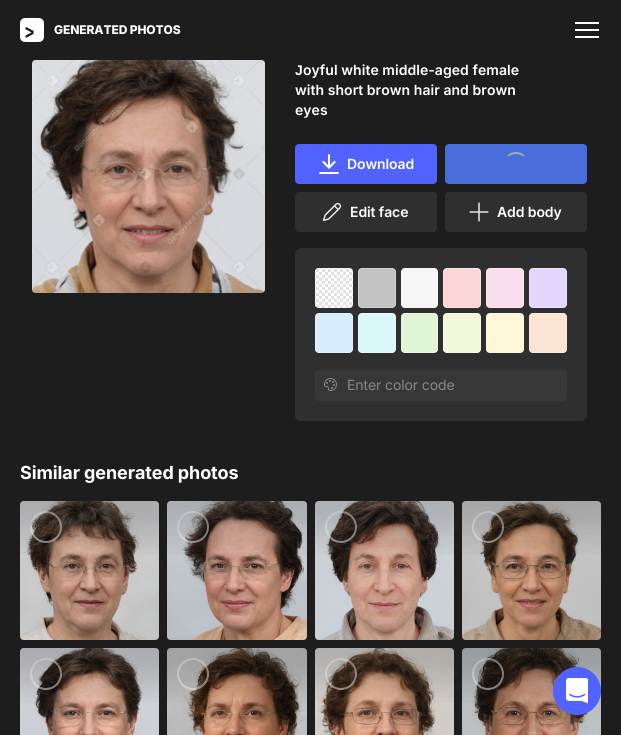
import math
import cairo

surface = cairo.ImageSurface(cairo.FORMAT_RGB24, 621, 735)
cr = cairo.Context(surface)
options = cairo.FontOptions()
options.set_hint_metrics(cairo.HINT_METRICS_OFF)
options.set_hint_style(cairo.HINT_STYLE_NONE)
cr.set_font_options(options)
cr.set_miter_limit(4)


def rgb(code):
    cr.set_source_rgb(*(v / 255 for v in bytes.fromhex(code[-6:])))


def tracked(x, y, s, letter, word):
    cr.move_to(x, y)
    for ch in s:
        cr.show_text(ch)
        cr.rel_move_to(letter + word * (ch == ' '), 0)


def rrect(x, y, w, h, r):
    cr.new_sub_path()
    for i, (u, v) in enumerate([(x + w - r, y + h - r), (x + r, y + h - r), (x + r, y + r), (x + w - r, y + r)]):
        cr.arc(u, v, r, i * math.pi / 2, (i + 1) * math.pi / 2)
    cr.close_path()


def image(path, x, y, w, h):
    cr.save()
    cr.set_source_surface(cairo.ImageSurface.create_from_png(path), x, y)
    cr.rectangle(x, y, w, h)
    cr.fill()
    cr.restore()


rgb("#1d1d1d")
cr.paint()
image("img/1.png", 20, 18, 24, 24)
for x, y, w, h, color in [
    (575, 22, 24, 2, "#ffffff"),
    (575, 29, 24, 2, "#ffffff"),
    (575, 36, 24, 2, "#ffffff"),
]:
    rgb(color)
    cr.rectangle(x, y, w, h)
    cr.fill()
image("img/2.png", 32, 60, 233, 233)
rgb("#5162ff")
rrect(295.5, 144.5, 141, 39, 3.5)
cr.fill_preserve()
cr.set_line_width(1)
cr.stroke()
image("img/3.png", 319, 154, 20, 20)
rgb("#496ddb")
rrect(445, 144, 142, 40, 4)
cr.fill()
cr.new_path()
cr.move_to(508, 156)
cr.curve_to(512.5, 152, 519.5, 152, 524, 156)
rgb("#aaaaaa")
cr.set_line_width(2)
cr.stroke()
rgb("#2f2f2f")
rrect(295, 192, 142, 40, 4)
cr.fill()
image("img/4.png", 322, 202, 20, 20)
rrect(445, 192, 142, 40, 4)
cr.fill()
image("img/5.png", 469, 202, 20, 20)
rrect(295, 248, 292, 173, 6)
cr.fill()
image("img/6.png", 315, 268, 38, 40)
rrect(315.5, 268.5, 37, 39, 3.5)
cr.set_source_rgba(1, 1, 1, 0.26)
cr.set_line_width(1)
cr.stroke()
rgb("#c2c2c2")
rrect(358, 268, 38, 40, 4)
cr.fill()
rrect(358.5, 268.5, 37, 39, 3.5)
cr.set_source_rgba(1, 1, 1, 0.26)
cr.stroke()
rgb("#f6f6f6")
rrect(401, 268, 37, 40, 4)
cr.fill()
rrect(401.5, 268.5, 36, 39, 3.5)
cr.set_source_rgba(1, 1, 1, 0.26)
cr.stroke()
rgb("#fad6d6")
rrect(443, 268, 38, 40, 4)
cr.fill()
rrect(443.5, 268.5, 37, 39, 3.5)
cr.set_source_rgba(1, 1, 1, 0.26)
cr.stroke()
rgb("#fbdeed")
rrect(486, 268, 38, 40, 4)
cr.fill()
rrect(486.5, 268.5, 37, 39, 3.5)
cr.set_source_rgba(1, 1, 1, 0.26)
cr.stroke()
rgb("#e3d6fd")
rrect(529, 268, 38, 40, 4)
cr.fill()
rrect(529.5, 268.5, 37, 39, 3.5)
cr.set_source_rgba(1, 1, 1, 0.26)
cr.stroke()
rgb("#d5edfe")
rrect(315, 313, 38, 40, 4)
cr.fill()
rrect(315.5, 313.5, 37, 39, 3.5)
cr.set_source_rgba(1, 1, 1, 0.26)
cr.stroke()
rgb("#daf8f9")
rrect(358, 313, 38, 40, 4)
cr.fill()
rrect(358.5, 313.5, 37, 39, 3.5)
cr.set_source_rgba(1, 1, 1, 0.26)
cr.stroke()
rgb("#e1f6d7")
rrect(401, 313, 37, 40, 4)
cr.fill()
rrect(401.5, 313.5, 36, 39, 3.5)
cr.set_source_rgba(1, 1, 1, 0.26)
cr.stroke()
rgb("#f2f8da")
rrect(443, 313, 38, 40, 4)
cr.fill()
rrect(443.5, 313.5, 37, 39, 3.5)
cr.set_source_rgba(1, 1, 1, 0.26)
cr.stroke()
rgb("#fef7d7")
rrect(486, 313, 38, 40, 4)
cr.fill()
rrect(486.5, 313.5, 37, 39, 3.5)
cr.set_source_rgba(1, 1, 1, 0.26)
cr.stroke()
rgb("#fbe4d4")
rrect(529, 313, 38, 40, 4)
cr.fill()
rrect(529.5, 313.5, 37, 39, 3.5)
cr.set_source_rgba(1, 1, 1, 0.26)
cr.stroke()
rgb("#373737")
rrect(315, 369, 252, 32, 4)
cr.fill()
image("img/7.png", 324, 378, 13, 13)
image("img/8.png", 20, 501, 139, 139)
cr.arc(46, 527, 15, 0, 2 * math.pi)
cr.set_source_rgba(1, 1, 1, 0.5)
cr.set_line_width(2)
cr.stroke()
gradient = cairo.LinearGradient(90, 501, 90, 570)
gradient.add_color_stop_rgba(0, 0.114, 0.114, 0.114, 0.2)
gradient.add_color_stop_rgba(0.07, 0.114, 0.114, 0.114, 0.2)
gradient.add_color_stop_rgba(0.13, 0.114, 0.114, 0.114, 0.19)
gradient.add_color_stop_rgba(0.2, 0.114, 0.114, 0.114, 0.18)
gradient.add_color_stop_rgba(0.27, 0.114, 0.114, 0.114, 0.17)
gradient.add_color_stop_rgba(0.33, 0.114, 0.114, 0.114, 0.15)
gradient.add_color_stop_rgba(0.4, 0.114, 0.114, 0.114, 0.13)
gradient.add_color_stop_rgba(0.47, 0.114, 0.114, 0.114, 0.11)
gradient.add_color_stop_rgba(0.53, 0.114, 0.114, 0.114, 0.09)
gradient.add_color_stop_rgba(0.6, 0.114, 0.114, 0.114, 0.07)
gradient.add_color_stop_rgba(0.67, 0.114, 0.114, 0.114, 0.05)
gradient.add_color_stop_rgba(0.73, 0.114, 0.114, 0.114, 0.03)
gradient.add_color_stop_rgba(0.8, 0.114, 0.114, 0.114, 0.02)
gradient.add_color_stop_rgba(0.87, 0.114, 0.114, 0.114, 0.01)
gradient.add_color_stop_rgba(0.93, 0.114, 0.114, 0.114, 0)
gradient.add_color_stop_rgba(1, 0.114, 0.114, 0.114, 0)
cr.set_source(gradient)
cr.rectangle(20, 501, 139, 54)
cr.fill()
image("img/9.png", 167, 501, 140, 139)
cr.arc(193, 527, 15, 0, 2 * math.pi)
cr.set_source_rgba(1, 1, 1, 0.5)
cr.stroke()
gradient = cairo.LinearGradient(237, 501, 237, 570)
gradient.add_color_stop_rgba(0, 0.114, 0.114, 0.114, 0.2)
gradient.add_color_stop_rgba(0.07, 0.114, 0.114, 0.114, 0.2)
gradient.add_color_stop_rgba(0.13, 0.114, 0.114, 0.114, 0.19)
gradient.add_color_stop_rgba(0.2, 0.114, 0.114, 0.114, 0.18)
gradient.add_color_stop_rgba(0.27, 0.114, 0.114, 0.114, 0.17)
gradient.add_color_stop_rgba(0.33, 0.114, 0.114, 0.114, 0.15)
gradient.add_color_stop_rgba(0.4, 0.114, 0.114, 0.114, 0.13)
gradient.add_color_stop_rgba(0.47, 0.114, 0.114, 0.114, 0.11)
gradient.add_color_stop_rgba(0.53, 0.114, 0.114, 0.114, 0.09)
gradient.add_color_stop_rgba(0.6, 0.114, 0.114, 0.114, 0.07)
gradient.add_color_stop_rgba(0.67, 0.114, 0.114, 0.114, 0.05)
gradient.add_color_stop_rgba(0.73, 0.114, 0.114, 0.114, 0.03)
gradient.add_color_stop_rgba(0.8, 0.114, 0.114, 0.114, 0.02)
gradient.add_color_stop_rgba(0.87, 0.114, 0.114, 0.114, 0.01)
gradient.add_color_stop_rgba(0.93, 0.114, 0.114, 0.114, 0)
gradient.add_color_stop_rgba(1, 0.114, 0.114, 0.114, 0)
cr.set_source(gradient)
cr.rectangle(167, 501, 140, 54)
cr.fill()
image("img/10.png", 315, 501, 139, 139)
cr.arc(341, 527, 15, 0, 2 * math.pi)
cr.set_source_rgba(1, 1, 1, 0.5)
cr.stroke()
gradient = cairo.LinearGradient(385, 501, 385, 570)
gradient.add_color_stop_rgba(0, 0.114, 0.114, 0.114, 0.2)
gradient.add_color_stop_rgba(0.07, 0.114, 0.114, 0.114, 0.2)
gradient.add_color_stop_rgba(0.13, 0.114, 0.114, 0.114, 0.19)
gradient.add_color_stop_rgba(0.2, 0.114, 0.114, 0.114, 0.18)
gradient.add_color_stop_rgba(0.27, 0.114, 0.114, 0.114, 0.17)
gradient.add_color_stop_rgba(0.33, 0.114, 0.114, 0.114, 0.15)
gradient.add_color_stop_rgba(0.4, 0.114, 0.114, 0.114, 0.13)
gradient.add_color_stop_rgba(0.47, 0.114, 0.114, 0.114, 0.11)
gradient.add_color_stop_rgba(0.53, 0.114, 0.114, 0.114, 0.09)
gradient.add_color_stop_rgba(0.6, 0.114, 0.114, 0.114, 0.07)
gradient.add_color_stop_rgba(0.67, 0.114, 0.114, 0.114, 0.05)
gradient.add_color_stop_rgba(0.73, 0.114, 0.114, 0.114, 0.03)
gradient.add_color_stop_rgba(0.8, 0.114, 0.114, 0.114, 0.02)
gradient.add_color_stop_rgba(0.87, 0.114, 0.114, 0.114, 0.01)
gradient.add_color_stop_rgba(0.93, 0.114, 0.114, 0.114, 0)
gradient.add_color_stop_rgba(1, 0.114, 0.114, 0.114, 0)
cr.set_source(gradient)
cr.rectangle(315, 501, 139, 54)
cr.fill()
image("img/11.png", 462, 501, 139, 139)
cr.arc(488, 527, 15, 0, 2 * math.pi)
cr.set_source_rgba(1, 1, 1, 0.5)
cr.stroke()
gradient = cairo.LinearGradient(532, 501, 532, 570)
gradient.add_color_stop_rgba(0, 0.114, 0.114, 0.114, 0.2)
gradient.add_color_stop_rgba(0.07, 0.114, 0.114, 0.114, 0.2)
gradient.add_color_stop_rgba(0.13, 0.114, 0.114, 0.114, 0.19)
gradient.add_color_stop_rgba(0.2, 0.114, 0.114, 0.114, 0.18)
gradient.add_color_stop_rgba(0.27, 0.114, 0.114, 0.114, 0.17)
gradient.add_color_stop_rgba(0.33, 0.114, 0.114, 0.114, 0.15)
gradient.add_color_stop_rgba(0.4, 0.114, 0.114, 0.114, 0.13)
gradient.add_color_stop_rgba(0.47, 0.114, 0.114, 0.114, 0.11)
gradient.add_color_stop_rgba(0.53, 0.114, 0.114, 0.114, 0.09)
gradient.add_color_stop_rgba(0.6, 0.114, 0.114, 0.114, 0.07)
gradient.add_color_stop_rgba(0.67, 0.114, 0.114, 0.114, 0.05)
gradient.add_color_stop_rgba(0.73, 0.114, 0.114, 0.114, 0.03)
gradient.add_color_stop_rgba(0.8, 0.114, 0.114, 0.114, 0.02)
gradient.add_color_stop_rgba(0.87, 0.114, 0.114, 0.114, 0.01)
gradient.add_color_stop_rgba(0.93, 0.114, 0.114, 0.114, 0)
gradient.add_color_stop_rgba(1, 0.114, 0.114, 0.114, 0)
cr.set_source(gradient)
cr.rectangle(462, 501, 139, 54)
cr.fill()
image("img/12.png", 20, 648, 139, 87)
cr.arc(46, 674, 15, 0, 2 * math.pi)
cr.set_source_rgba(1, 1, 1, 0.5)
cr.stroke()
gradient = cairo.LinearGradient(90, 648, 90, 718)
gradient.add_color_stop_rgba(0, 0.114, 0.114, 0.114, 0.2)
gradient.add_color_stop_rgba(0.07, 0.114, 0.114, 0.114, 0.2)
gradient.add_color_stop_rgba(0.13, 0.114, 0.114, 0.114, 0.19)
gradient.add_color_stop_rgba(0.2, 0.114, 0.114, 0.114, 0.18)
gradient.add_color_stop_rgba(0.27, 0.114, 0.114, 0.114, 0.17)
gradient.add_color_stop_rgba(0.33, 0.114, 0.114, 0.114, 0.15)
gradient.add_color_stop_rgba(0.4, 0.114, 0.114, 0.114, 0.13)
gradient.add_color_stop_rgba(0.47, 0.114, 0.114, 0.114, 0.11)
gradient.add_color_stop_rgba(0.53, 0.114, 0.114, 0.114, 0.09)
gradient.add_color_stop_rgba(0.6, 0.114, 0.114, 0.114, 0.07)
gradient.add_color_stop_rgba(0.67, 0.114, 0.114, 0.114, 0.05)
gradient.add_color_stop_rgba(0.73, 0.114, 0.114, 0.114, 0.03)
gradient.add_color_stop_rgba(0.8, 0.114, 0.114, 0.114, 0.02)
gradient.add_color_stop_rgba(0.87, 0.114, 0.114, 0.114, 0.01)
gradient.add_color_stop_rgba(0.93, 0.114, 0.114, 0.114, 0)
gradient.add_color_stop_rgba(1, 0.114, 0.114, 0.114, 0)
cr.set_source(gradient)
cr.rectangle(20, 648, 139, 55)
cr.fill()
image("img/13.png", 167, 648, 140, 87)
cr.arc(193, 674, 15, 0, 2 * math.pi)
cr.set_source_rgba(1, 1, 1, 0.5)
cr.stroke()
gradient = cairo.LinearGradient(237, 648, 237, 718)
gradient.add_color_stop_rgba(0, 0.114, 0.114, 0.114, 0.2)
gradient.add_color_stop_rgba(0.07, 0.114, 0.114, 0.114, 0.2)
gradient.add_color_stop_rgba(0.13, 0.114, 0.114, 0.114, 0.19)
gradient.add_color_stop_rgba(0.2, 0.114, 0.114, 0.114, 0.18)
gradient.add_color_stop_rgba(0.27, 0.114, 0.114, 0.114, 0.17)
gradient.add_color_stop_rgba(0.33, 0.114, 0.114, 0.114, 0.15)
gradient.add_color_stop_rgba(0.4, 0.114, 0.114, 0.114, 0.13)
gradient.add_color_stop_rgba(0.47, 0.114, 0.114, 0.114, 0.11)
gradient.add_color_stop_rgba(0.53, 0.114, 0.114, 0.114, 0.09)
gradient.add_color_stop_rgba(0.6, 0.114, 0.114, 0.114, 0.07)
gradient.add_color_stop_rgba(0.67, 0.114, 0.114, 0.114, 0.05)
gradient.add_color_stop_rgba(0.73, 0.114, 0.114, 0.114, 0.03)
gradient.add_color_stop_rgba(0.8, 0.114, 0.114, 0.114, 0.02)
gradient.add_color_stop_rgba(0.87, 0.114, 0.114, 0.114, 0.01)
gradient.add_color_stop_rgba(0.93, 0.114, 0.114, 0.114, 0)
gradient.add_color_stop_rgba(1, 0.114, 0.114, 0.114, 0)
cr.set_source(gradient)
cr.rectangle(167, 648, 140, 55)
cr.fill()
image("img/14.png", 315, 648, 139, 87)
cr.arc(341, 674, 15, 0, 2 * math.pi)
cr.set_source_rgba(1, 1, 1, 0.5)
cr.stroke()
gradient = cairo.LinearGradient(385, 648, 385, 718)
gradient.add_color_stop_rgba(0, 0.114, 0.114, 0.114, 0.2)
gradient.add_color_stop_rgba(0.07, 0.114, 0.114, 0.114, 0.2)
gradient.add_color_stop_rgba(0.13, 0.114, 0.114, 0.114, 0.19)
gradient.add_color_stop_rgba(0.2, 0.114, 0.114, 0.114, 0.18)
gradient.add_color_stop_rgba(0.27, 0.114, 0.114, 0.114, 0.17)
gradient.add_color_stop_rgba(0.33, 0.114, 0.114, 0.114, 0.15)
gradient.add_color_stop_rgba(0.4, 0.114, 0.114, 0.114, 0.13)
gradient.add_color_stop_rgba(0.47, 0.114, 0.114, 0.114, 0.11)
gradient.add_color_stop_rgba(0.53, 0.114, 0.114, 0.114, 0.09)
gradient.add_color_stop_rgba(0.6, 0.114, 0.114, 0.114, 0.07)
gradient.add_color_stop_rgba(0.67, 0.114, 0.114, 0.114, 0.05)
gradient.add_color_stop_rgba(0.73, 0.114, 0.114, 0.114, 0.03)
gradient.add_color_stop_rgba(0.8, 0.114, 0.114, 0.114, 0.02)
gradient.add_color_stop_rgba(0.87, 0.114, 0.114, 0.114, 0.01)
gradient.add_color_stop_rgba(0.93, 0.114, 0.114, 0.114, 0)
gradient.add_color_stop_rgba(1, 0.114, 0.114, 0.114, 0)
cr.set_source(gradient)
cr.rectangle(315, 648, 139, 55)
cr.fill()
image("img/15.png", 462, 648, 139, 87)
cr.arc(488, 674, 15, 0, 2 * math.pi)
cr.set_source_rgba(1, 1, 1, 0.5)
cr.stroke()
gradient = cairo.LinearGradient(532, 648, 532, 718)
gradient.add_color_stop_rgba(0, 0.114, 0.114, 0.114, 0.2)
gradient.add_color_stop_rgba(0.07, 0.114, 0.114, 0.114, 0.2)
gradient.add_color_stop_rgba(0.13, 0.114, 0.114, 0.114, 0.19)
gradient.add_color_stop_rgba(0.2, 0.114, 0.114, 0.114, 0.18)
gradient.add_color_stop_rgba(0.27, 0.114, 0.114, 0.114, 0.17)
gradient.add_color_stop_rgba(0.33, 0.114, 0.114, 0.114, 0.15)
gradient.add_color_stop_rgba(0.4, 0.114, 0.114, 0.114, 0.13)
gradient.add_color_stop_rgba(0.47, 0.114, 0.114, 0.114, 0.11)
gradient.add_color_stop_rgba(0.53, 0.114, 0.114, 0.114, 0.09)
gradient.add_color_stop_rgba(0.6, 0.114, 0.114, 0.114, 0.07)
gradient.add_color_stop_rgba(0.67, 0.114, 0.114, 0.114, 0.05)
gradient.add_color_stop_rgba(0.73, 0.114, 0.114, 0.114, 0.03)
gradient.add_color_stop_rgba(0.8, 0.114, 0.114, 0.114, 0.02)
gradient.add_color_stop_rgba(0.87, 0.114, 0.114, 0.114, 0.01)
gradient.add_color_stop_rgba(0.93, 0.114, 0.114, 0.114, 0)
gradient.add_color_stop_rgba(1, 0.114, 0.114, 0.114, 0)
cr.set_source(gradient)
cr.rectangle(462, 648, 139, 55)
cr.fill()
rgb("#5162ff")
cr.arc(577, 691, 24, 0, 2 * math.pi)
cr.fill()
image("img/16.png", 566, 678, 22, 26)
cr.select_font_face("Inter ExtraBold")
cr.set_font_size(12)
rgb("#ffffff")
tracked(54, 34, "GENERATED PHOTOS", -0.1, 0)
cr.select_font_face("Liberation Sans", cairo.FONT_SLANT_NORMAL, cairo.FONT_WEIGHT_BOLD)
cr.set_font_size(14)
tracked(295, 75, "J", 0.05, 0)
cr.select_font_face("Inter SemiBold")
for x, y, s in [
    (303, 75, "oyful white middle-aged female"),
    (295, 95, "with short brown hair and brown"),
    (295, 115, "eyes"),
]:
    tracked(x, y, s, 0.05, 0)
for x, y, s in [
    (347, 169, "Download"),
    (350, 217, "Edit face"),
    (497, 217, "Add body"),
]:
    tracked(x, y, s, -0.1, 0)
cr.select_font_face("Inter")
rgb("#878787")
tracked(347, 390, "Enter color code", -0.1, 0)
cr.select_font_face("Inter", cairo.FONT_SLANT_NORMAL, cairo.FONT_WEIGHT_BOLD)
cr.set_font_size(18)
rgb("#ffffff")
tracked(20, 479, "Similar generated photos", -0.1, 0)
surface.write_to_png("page.png")
